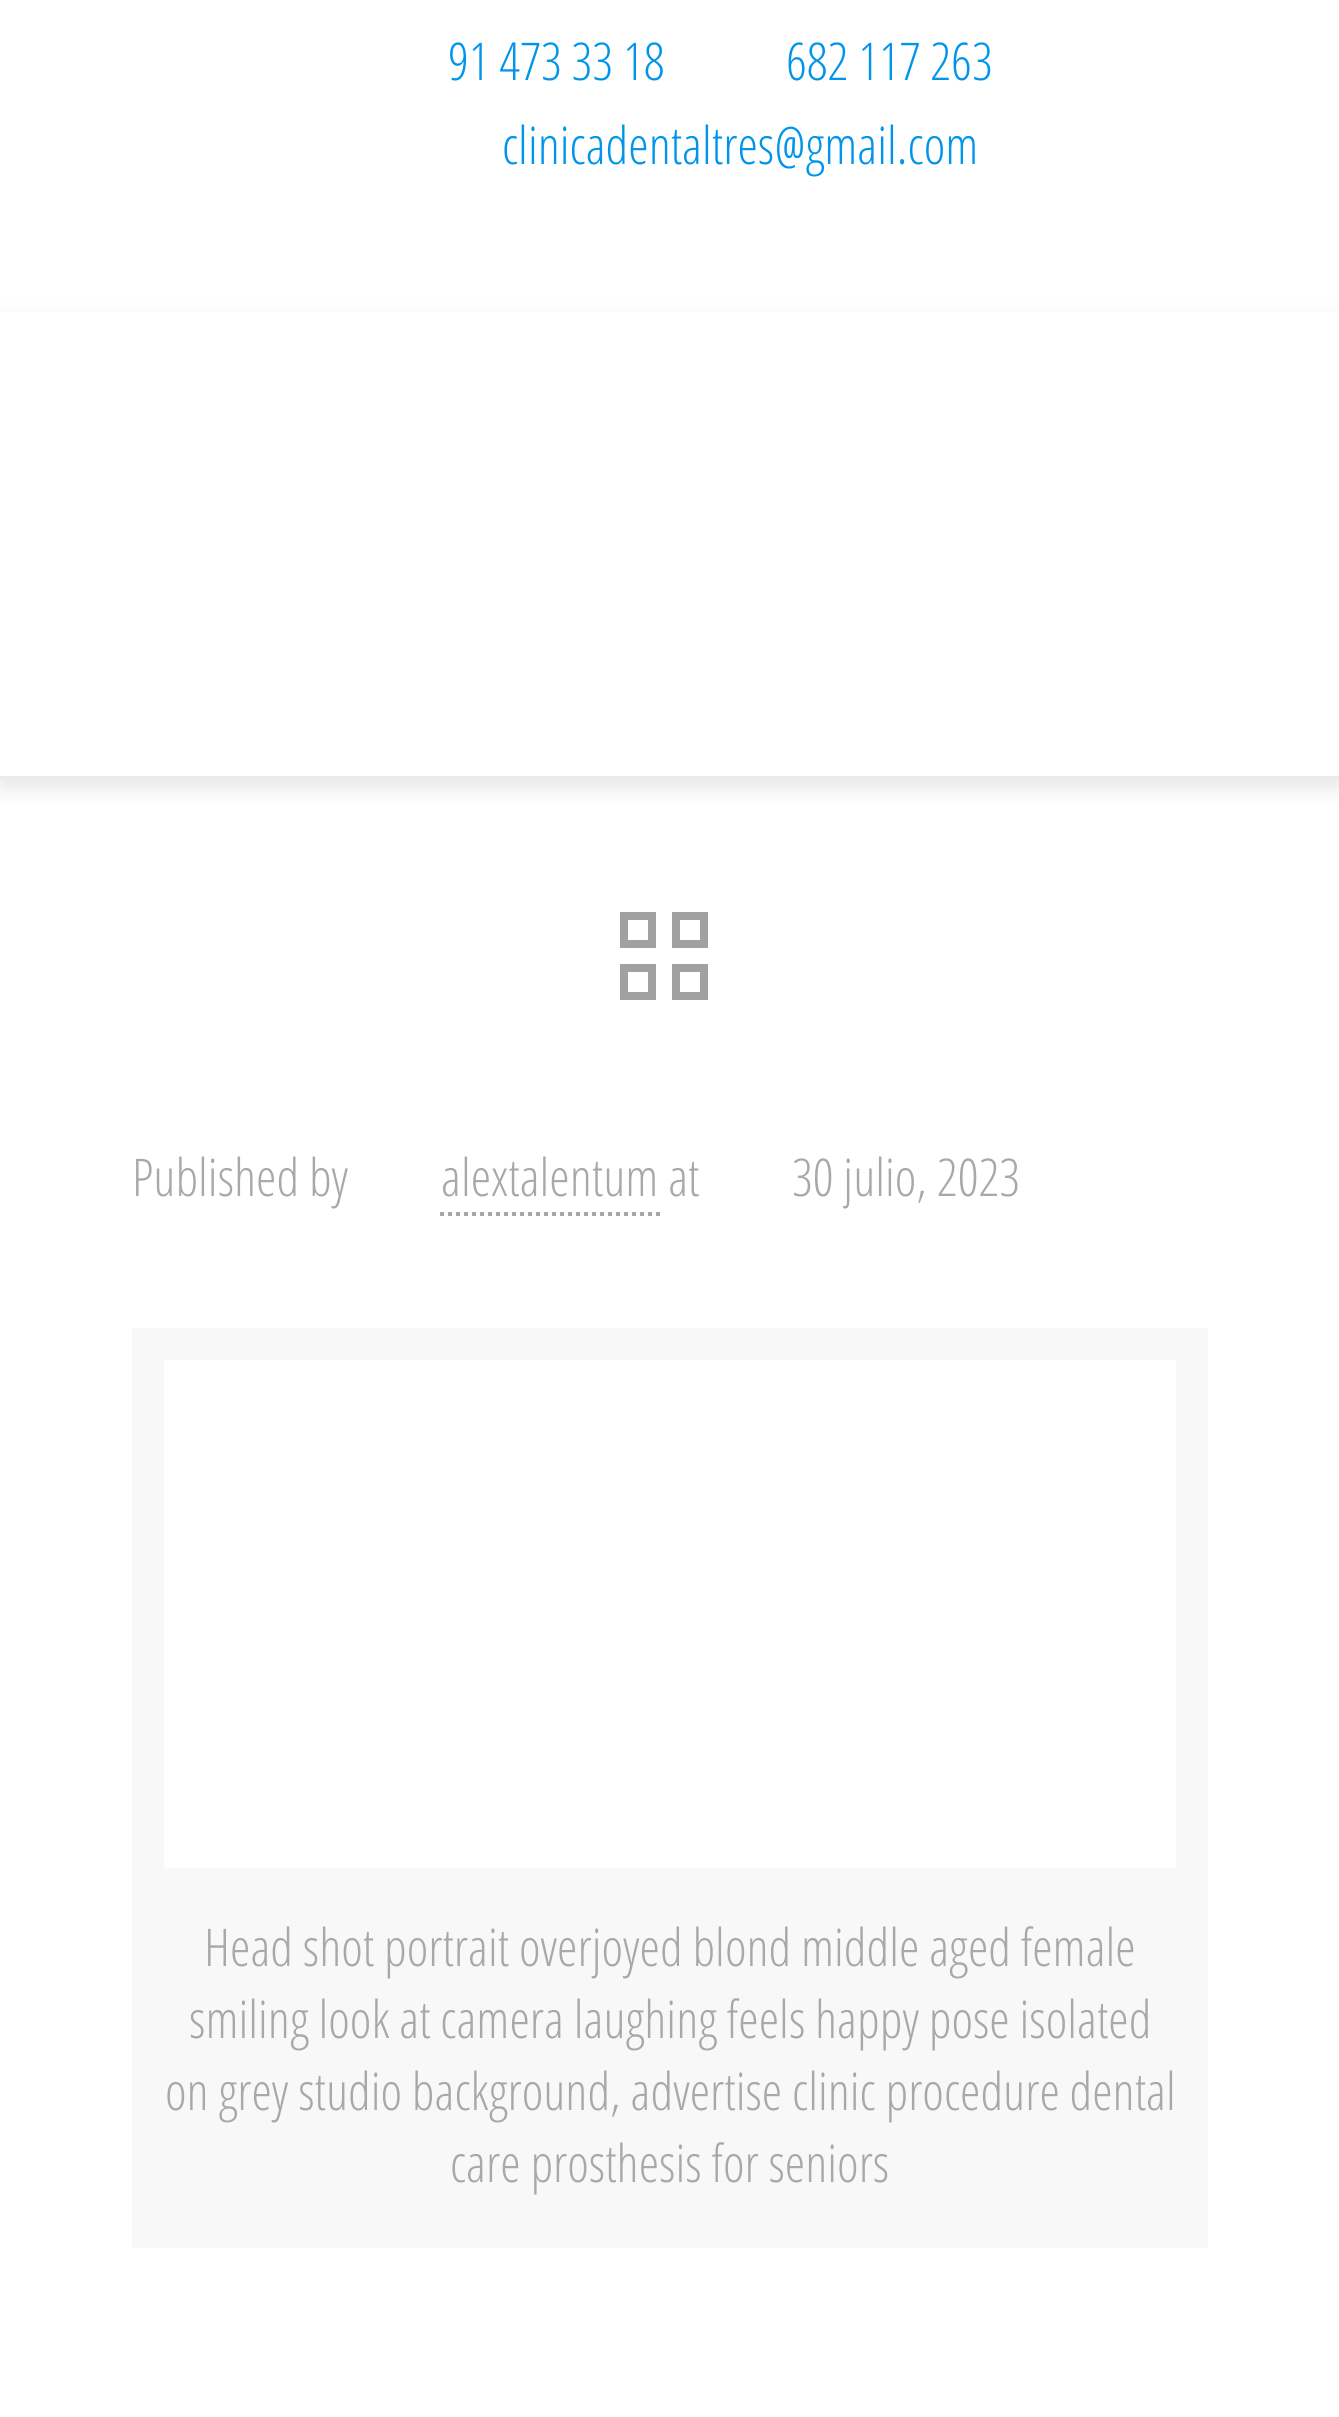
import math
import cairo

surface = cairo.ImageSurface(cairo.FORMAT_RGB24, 1339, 2417)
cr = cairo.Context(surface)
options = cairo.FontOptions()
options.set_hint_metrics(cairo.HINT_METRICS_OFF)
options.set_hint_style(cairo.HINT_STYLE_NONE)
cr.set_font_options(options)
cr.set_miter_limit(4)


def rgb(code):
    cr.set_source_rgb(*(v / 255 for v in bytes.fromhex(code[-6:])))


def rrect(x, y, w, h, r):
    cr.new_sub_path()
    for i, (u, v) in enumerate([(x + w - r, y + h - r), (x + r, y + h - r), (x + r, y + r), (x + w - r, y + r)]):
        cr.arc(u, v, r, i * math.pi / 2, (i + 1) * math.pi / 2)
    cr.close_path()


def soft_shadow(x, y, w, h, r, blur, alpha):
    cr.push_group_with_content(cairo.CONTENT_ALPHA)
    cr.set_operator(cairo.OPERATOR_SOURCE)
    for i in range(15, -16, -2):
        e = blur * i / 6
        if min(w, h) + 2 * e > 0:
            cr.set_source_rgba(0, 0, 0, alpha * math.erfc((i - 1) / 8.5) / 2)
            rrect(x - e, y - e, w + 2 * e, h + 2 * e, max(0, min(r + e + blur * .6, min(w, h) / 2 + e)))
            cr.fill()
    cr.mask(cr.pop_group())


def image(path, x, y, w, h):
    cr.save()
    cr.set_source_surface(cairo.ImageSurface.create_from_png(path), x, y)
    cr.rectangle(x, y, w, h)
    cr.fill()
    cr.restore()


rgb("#ffffff")
cr.paint()
rgb("#000000")
soft_shadow(0, 320, 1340, 468, 0, 10, 0.1)
rgb("#ffffff")
cr.rectangle(0, 312, 1339, 464)
cr.fill()
rgb("#ebebeb")
cr.rectangle(0, 776, 1339, 4)
cr.fill()
image("img/1.png", 620, 912, 88, 88)
cr.new_path()
cr.move_to(440, 1214)
cr.line_to(660, 1214)
rgb("#a8a8a8")
cr.set_line_width(4)
cr.set_dash([4, 4])
cr.stroke()
cr.rectangle(148, 1344, 1044, 888)
rgb("#f8f8f8")
cr.set_line_width(32)
cr.set_dash([])
cr.stroke()
cr.rectangle(164, 1868, 1012, 348)
cr.fill()
cr.select_font_face("Open Sans Condensed Light")
cr.set_font_size(52)
rgb("#0095eb")
for x, y, s in [
    (448, 80, "91 473 33 18"),
    (786, 80, "682 117 263"),
    (502, 164, "clinicadentaltres@gmail.com"),
]:
    cr.move_to(x, y)
    cr.show_text(s)
rgb("#a8a8a8")
for x, y, s in [
    (132, 1196, "Published by"),
    (441, 1196, "alextalentum at"),
    (792, 1196, "30 julio, 2023"),
    (204, 1966, "Head shot portrait overjoyed blond middle aged female"),
    (189, 2038, "smiling look at camera laughing feels happy pose isolated"),
    (165, 2110, "on grey studio background, advertise clinic procedure dental"),
    (450, 2182, "care prosthesis for seniors"),
]:
    cr.move_to(x, y)
    cr.show_text(s)
surface.write_to_png("page.png")
